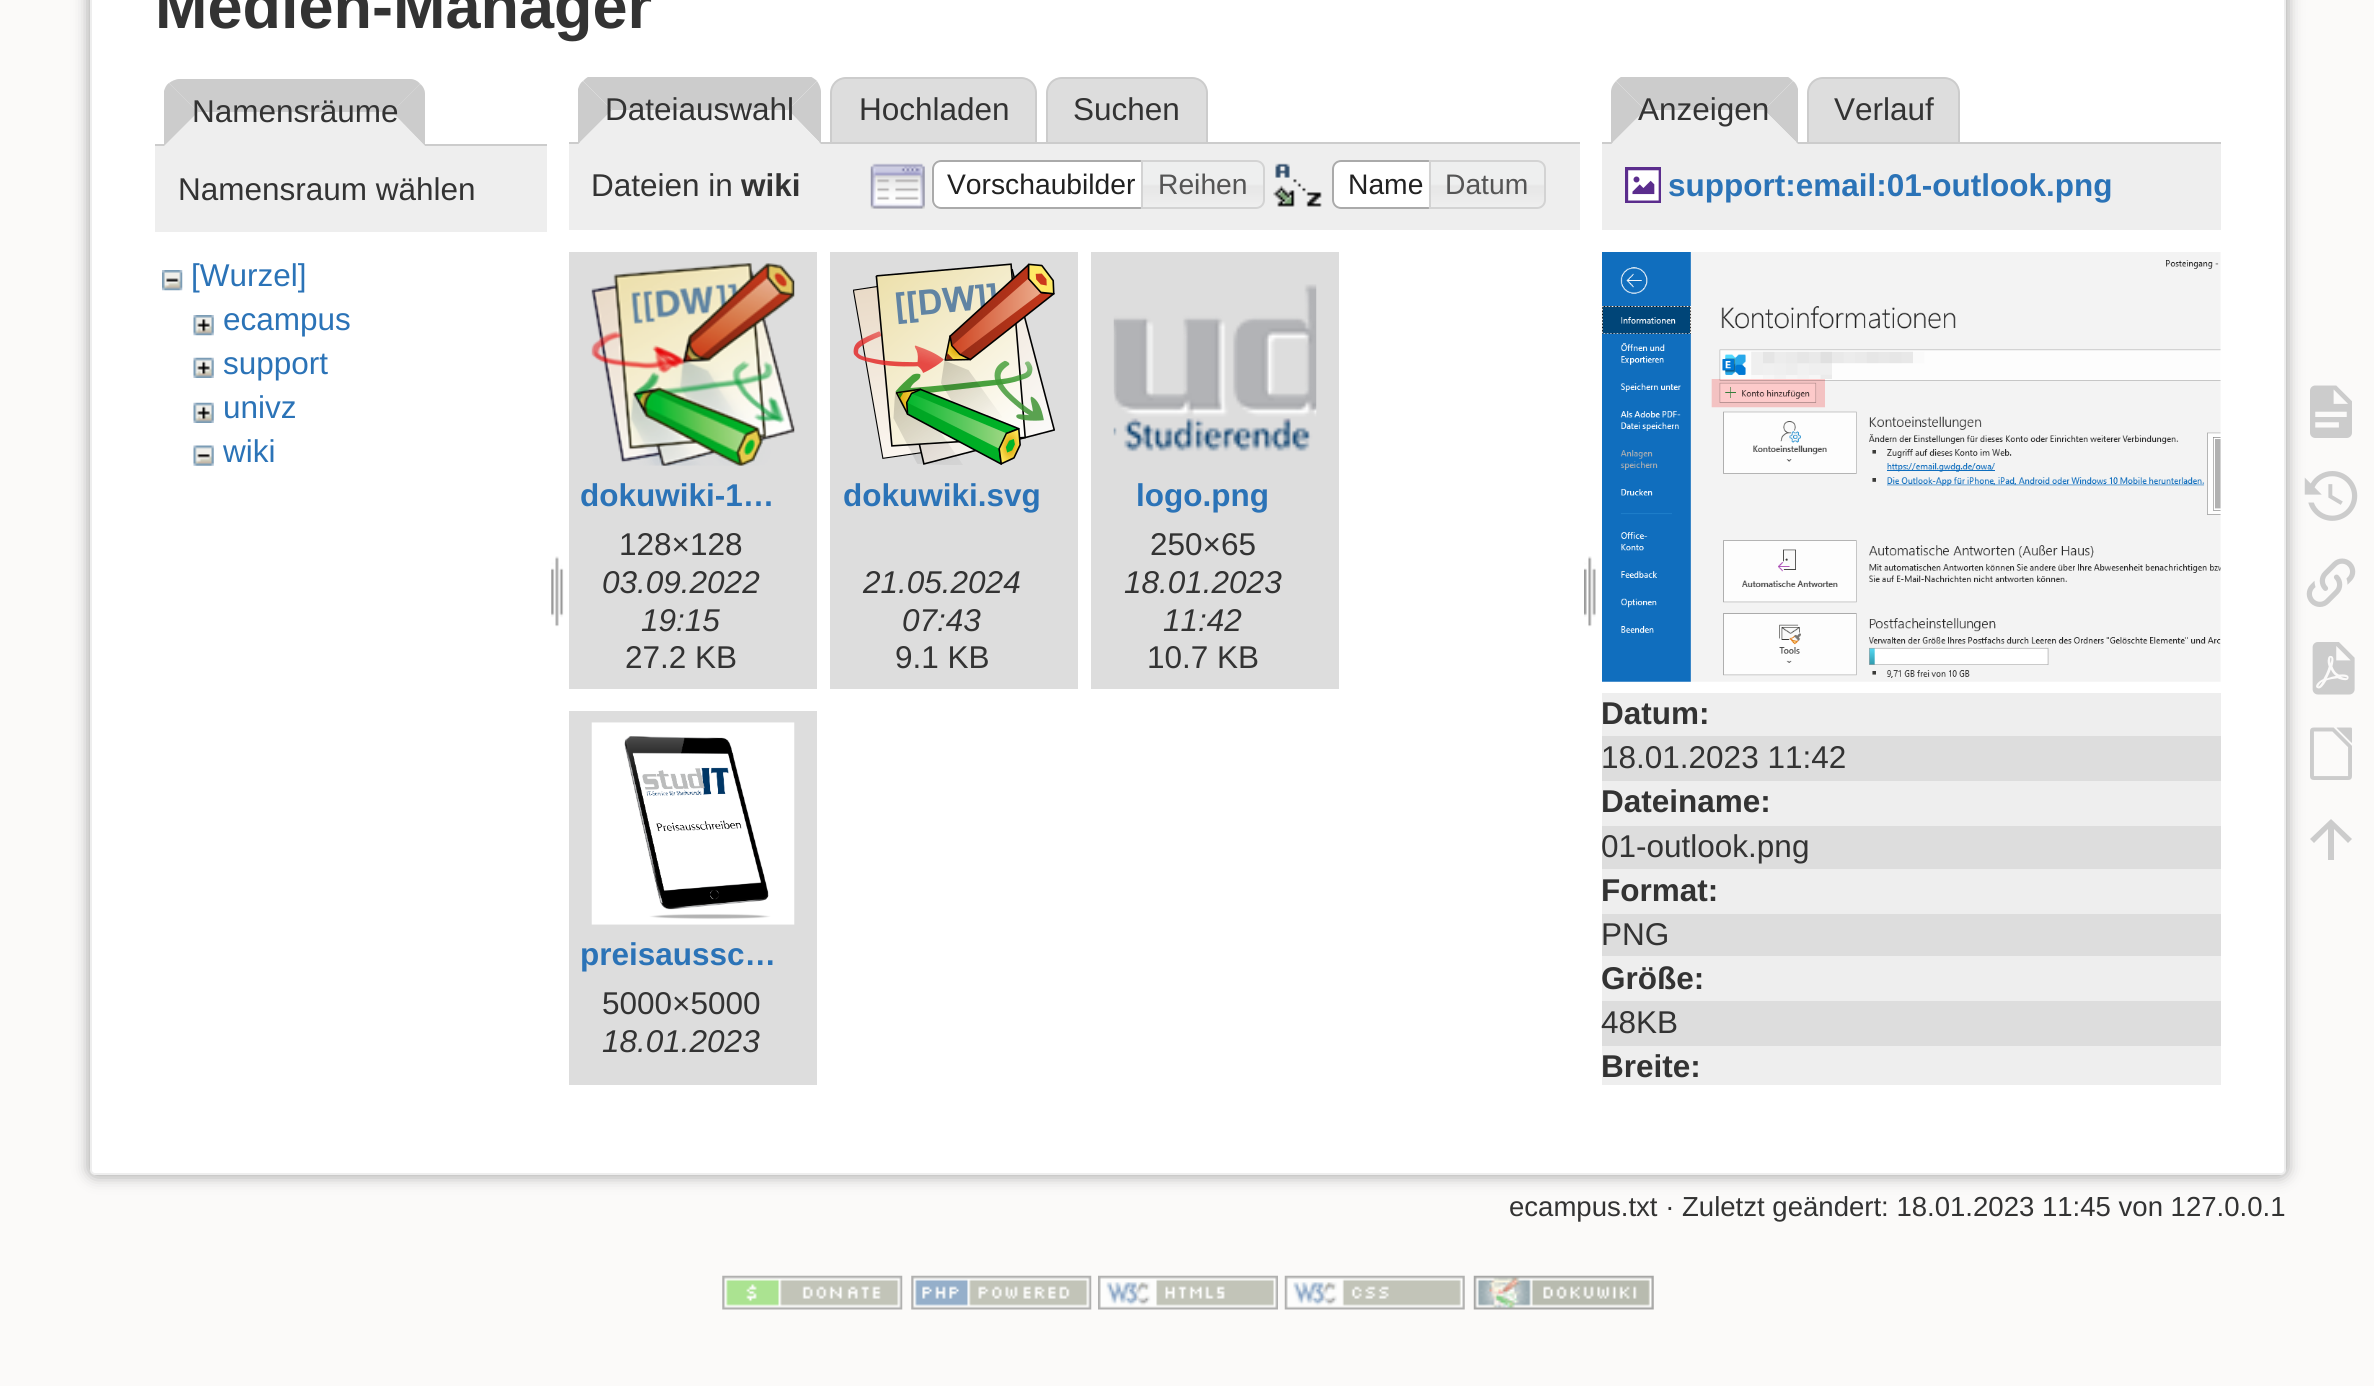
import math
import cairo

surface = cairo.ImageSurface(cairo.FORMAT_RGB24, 2374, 1386)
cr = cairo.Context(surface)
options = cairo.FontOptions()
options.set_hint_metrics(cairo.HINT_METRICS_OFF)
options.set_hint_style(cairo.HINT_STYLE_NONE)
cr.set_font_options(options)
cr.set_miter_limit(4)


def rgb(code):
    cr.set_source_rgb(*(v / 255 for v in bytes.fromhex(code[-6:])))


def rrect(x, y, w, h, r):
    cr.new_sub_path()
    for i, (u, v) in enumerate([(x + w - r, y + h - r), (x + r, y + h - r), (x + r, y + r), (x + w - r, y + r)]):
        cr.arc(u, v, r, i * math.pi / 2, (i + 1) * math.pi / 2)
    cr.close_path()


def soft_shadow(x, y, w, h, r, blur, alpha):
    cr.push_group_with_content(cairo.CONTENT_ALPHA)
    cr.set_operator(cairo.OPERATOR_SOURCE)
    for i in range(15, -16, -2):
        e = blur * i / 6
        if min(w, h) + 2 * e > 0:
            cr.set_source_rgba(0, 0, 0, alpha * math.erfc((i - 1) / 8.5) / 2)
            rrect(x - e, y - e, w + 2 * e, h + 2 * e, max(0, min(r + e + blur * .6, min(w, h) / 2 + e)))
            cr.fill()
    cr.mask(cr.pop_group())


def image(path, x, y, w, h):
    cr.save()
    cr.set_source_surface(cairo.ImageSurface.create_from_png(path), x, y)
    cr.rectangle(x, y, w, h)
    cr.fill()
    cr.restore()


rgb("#fbfaf9")
cr.paint()
rgb("#999999")
soft_shadow(90, -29, 2196, 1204, 5, 8, 1)
rgb("#ffffff")
rrect(91, -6, 2194, 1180, 4)
cr.fill_preserve()
rgb("#eeeeee")
cr.stroke()
rgb("#cccccc")
cr.rectangle(155, 144, 392, 2)
cr.fill()
rgb("#eeeeee")
cr.new_path()
cr.move_to(180, 79)
cr.line_to(409, 79)
cr.curve_to(418, 79, 425, 86, 425, 95)
cr.line_to(425, 146)
cr.line_to(164, 146)
cr.line_to(164, 95)
cr.curve_to(164, 86, 171, 79, 180, 79)
cr.close_path()
cr.fill()
rgb("#cccccc")
cr.new_path()
cr.move_to(180, 79)
cr.curve_to(176, 79, 172, 81, 169, 83)
cr.line_to(198, 112)
cr.line_to(392, 112)
cr.line_to(420, 84)
cr.curve_to(418, 81, 414, 79, 410, 79)
cr.close_path()
cr.fill()
cr.new_path()
cr.move_to(425, 146)
cr.line_to(425, 94)
cr.curve_to(425, 90, 423, 86, 420, 84)
cr.line_to(392, 112)
cr.close_path()
cr.fill()
rgb("#eeeeee")
cr.new_path()
cr.move_to(425, 146)
cr.line_to(392, 112)
cr.line_to(198, 112)
cr.line_to(164, 146)
cr.close_path()
cr.fill()
rgb("#cccccc")
cr.new_path()
cr.move_to(164, 91)
cr.curve_to(165, 88, 166, 85, 169, 83)
cr.line_to(198, 112)
cr.line_to(164, 146)
cr.close_path()
cr.fill()
rgb("#eeeeee")
cr.rectangle(155, 146, 392, 86)
cr.fill()
image("img/1.png", 162, 270, 21, 21)
image("img/2.png", 193, 315, 21, 21)
image("img/3.png", 193, 357, 21, 21)
image("img/3.png", 193, 402, 21, 21)
image("img/4.png", 193, 445, 21, 21)
image("img/5.png", 551, 556, 13, 71)
cr.save()
cr.rectangle(569, 77, 1011, 67)
cr.clip()
rgb("#cccccc")
cr.new_path()
cr.move_to(809, 76)
cr.line_to(590, 76)
cr.curve_to(587, 77, 585, 79, 583, 81)
cr.line_to(612, 110)
cr.line_to(788, 110)
cr.line_to(817, 81)
cr.curve_to(815, 79, 812, 77, 809, 76)
cr.close_path()
cr.fill()
cr.restore()
rgb("#dddddd")
cr.new_path()
cr.move_to(846, 78)
cr.line_to(1021, 78)
cr.curve_to(1029.5, 78, 1036, 84.5, 1036, 93)
cr.line_to(1036, 143)
cr.line_to(831, 143)
cr.line_to(831, 93)
cr.curve_to(831, 84.5, 837.5, 78, 846, 78)
cr.close_path()
cr.fill_preserve()
rgb("#cccccc")
cr.stroke()
rgb("#dddddd")
cr.new_path()
cr.move_to(1062, 78)
cr.line_to(1192, 78)
cr.curve_to(1200.5, 78, 1207, 84.5, 1207, 93)
cr.line_to(1207, 143)
cr.line_to(1047, 143)
cr.line_to(1047, 93)
cr.curve_to(1047, 84.5, 1053.5, 78, 1062, 78)
cr.close_path()
cr.fill_preserve()
rgb("#cccccc")
cr.stroke()
cr.rectangle(569, 142, 1011, 2)
cr.fill()
cr.new_path()
cr.move_to(817, 81)
cr.line_to(788, 110)
cr.line_to(821, 144)
cr.line_to(821, 92)
cr.curve_to(821, 88, 819, 84, 817, 81)
cr.close_path()
cr.fill()
rgb("#eeeeee")
cr.new_path()
cr.move_to(821, 144)
cr.line_to(788, 110)
cr.line_to(612, 110)
cr.line_to(578, 144)
cr.close_path()
cr.fill()
rgb("#cccccc")
cr.new_path()
cr.move_to(578, 144)
cr.line_to(612, 110)
cr.line_to(583, 81)
cr.curve_to(580, 83, 579, 86, 578, 89)
cr.close_path()
cr.fill()
rgb("#eeeeee")
cr.rectangle(569, 144, 1011, 86)
cr.fill()
image("img/6.png", 870, 163, 55, 46)
rgb("#ffffff")
cr.new_path()
cr.move_to(941, 160)
cr.line_to(1152, 160)
cr.line_to(1152, 209)
cr.line_to(941, 209)
cr.curve_to(936, 209, 932, 205, 932, 200)
cr.line_to(932, 169)
cr.curve_to(932, 164, 936, 160, 941, 160)
cr.close_path()
cr.fill()
image("img/7.png", 931, 160, 8, 49)
cr.new_path()
cr.move_to(941, 161)
cr.line_to(1151, 161)
cr.line_to(1151, 208)
cr.line_to(941, 208)
cr.curve_to(936.5, 208, 933, 204.5, 933, 200)
cr.line_to(933, 169)
cr.curve_to(933, 164.5, 936.5, 161, 941, 161)
cr.close_path()
rgb("#aaaaaa")
cr.stroke()
image("img/8.png", 1140, 160, 124, 49)
cr.new_path()
cr.move_to(1142, 161)
cr.line_to(1256, 161)
cr.curve_to(1260.5, 161, 1264, 164.5, 1264, 169)
cr.line_to(1264, 200)
cr.curve_to(1264, 204.5, 1260.5, 208, 1256, 208)
cr.line_to(1142, 208)
cr.close_path()
rgb("#d3d3d3")
cr.stroke()
image("img/9.png", 1273, 163, 49, 44)
rgb("#ffffff")
cr.new_path()
cr.move_to(1341, 160)
cr.line_to(1440, 160)
cr.line_to(1440, 209)
cr.line_to(1341, 209)
cr.curve_to(1336, 209, 1332, 205, 1332, 200)
cr.line_to(1332, 169)
cr.curve_to(1332, 164, 1336, 160, 1341, 160)
cr.close_path()
cr.fill()
image("img/10.png", 1332, 160, 7, 49)
cr.new_path()
cr.move_to(1341, 161)
cr.line_to(1439, 161)
cr.line_to(1439, 208)
cr.line_to(1341, 208)
cr.curve_to(1336.5, 208, 1333, 204.5, 1333, 200)
cr.line_to(1333, 169)
cr.curve_to(1333, 164.5, 1336.5, 161, 1341, 161)
cr.close_path()
rgb("#aaaaaa")
cr.stroke()
image("img/11.png", 1428, 160, 118, 49)
cr.new_path()
cr.move_to(1430, 161)
cr.line_to(1537, 161)
cr.curve_to(1541.5, 161, 1545, 164.5, 1545, 169)
cr.line_to(1545, 200)
cr.curve_to(1545, 204.5, 1541.5, 208, 1537, 208)
cr.line_to(1430, 208)
cr.close_path()
rgb("#d3d3d3")
cr.stroke()
rgb("#dddddd")
cr.rectangle(569, 252, 248, 437)
cr.fill()
image("img/12.png", 591, 263, 204, 203)
cr.rectangle(830, 252, 248, 437)
cr.fill()
image("img/13.png", 853, 263, 202, 202)
cr.rectangle(1091, 252, 248, 437)
cr.fill()
image("img/14.png", 1113, 284, 204, 168)
cr.rectangle(569, 711, 248, 374)
cr.fill()
image("img/15.png", 591, 722, 204, 203)
image("img/16.png", 1584, 556, 12, 71)
cr.save()
cr.rectangle(1602, 77, 619, 67)
cr.clip()
rgb("#cccccc")
cr.new_path()
cr.move_to(1786, 76)
cr.line_to(1623, 76)
cr.curve_to(1620, 77, 1618, 79, 1616, 81)
cr.line_to(1645, 110)
cr.line_to(1764, 110)
cr.line_to(1793, 81)
cr.curve_to(1791, 79, 1789, 77, 1786, 76)
cr.close_path()
cr.fill()
cr.restore()
cr.new_path()
cr.move_to(1823, 78)
cr.line_to(1944, 78)
cr.curve_to(1952.5, 78, 1959, 84.5, 1959, 93)
cr.line_to(1959, 143)
cr.line_to(1808, 143)
cr.line_to(1808, 93)
cr.curve_to(1808, 84.5, 1814.5, 78, 1823, 78)
cr.close_path()
cr.fill_preserve()
rgb("#cccccc")
cr.stroke()
cr.rectangle(1602, 142, 619, 2)
cr.fill()
cr.new_path()
cr.move_to(1793, 81)
cr.line_to(1764, 110)
cr.line_to(1798, 144)
cr.line_to(1798, 89)
cr.curve_to(1797, 86, 1796, 83, 1793, 81)
cr.close_path()
cr.fill()
rgb("#eeeeee")
cr.new_path()
cr.move_to(1798, 144)
cr.line_to(1764, 110)
cr.line_to(1645, 110)
cr.line_to(1611, 144)
cr.close_path()
cr.fill()
rgb("#cccccc")
cr.new_path()
cr.move_to(1611, 144)
cr.line_to(1611, 92)
cr.curve_to(1611, 88, 1613, 84, 1616, 81)
cr.line_to(1645, 110)
cr.close_path()
cr.fill()
rgb("#eeeeee")
cr.rectangle(1602, 144, 619, 86)
cr.fill()
image("img/17.png", 1625, 167, 36, 36)
image("img/18.png", 1602, 252, 619, 430)
for x, y, w, h, color in [
    (1602, 693, 619, 43, "#eeeeee"),
    (1602, 736, 619, 45, "#dddddd"),
    (1602, 781, 619, 45, "#eeeeee"),
    (1602, 826, 619, 43, "#dddddd"),
    (1602, 869, 619, 45, "#eeeeee"),
    (1602, 914, 619, 42, "#dddddd"),
    (1602, 956, 619, 45, "#eeeeee"),
    (1602, 1001, 619, 45, "#dddddd"),
    (1602, 1046, 619, 39, "#eeeeee"),
]:
    rgb(color)
    cr.rectangle(x, y, w, h)
    cr.fill()
image("img/19.png", 2310, 385, 42, 53)
image("img/20.png", 2304, 471, 54, 50)
image("img/21.png", 2306, 558, 50, 49)
image("img/22.png", 2312, 642, 43, 53)
image("img/23.png", 2310, 727, 42, 53)
rgb("#cccccc")
cr.new_path()
cr.move_to(2334, 860)
cr.line_to(2328, 860)
cr.line_to(2328, 829)
cr.line_to(2314, 843)
cr.line_to(2310, 839)
cr.line_to(2331, 819)
cr.line_to(2352, 839)
cr.line_to(2348, 843)
cr.line_to(2334, 829)
cr.close_path()
cr.fill()
image("img/24.png", 722, 1275, 181, 35)
image("img/25.png", 911, 1275, 181, 35)
image("img/26.png", 1098, 1275, 180, 35)
image("img/27.png", 1284, 1275, 181, 35)
image("img/28.png", 1473, 1275, 181, 35)
cr.select_font_face("Liberation Sans", cairo.FONT_SLANT_NORMAL, cairo.FONT_WEIGHT_BOLD)
cr.set_font_size(63)
rgb("#333333")
cr.move_to(155, 28)
cr.show_text("Medien-Manager")
cr.select_font_face("Liberation Sans")
cr.set_font_size(31.5)
cr.move_to(192, 122)
cr.show_text("Namensräume")
cr.move_to(178, 200)
cr.show_text("Namensraum wählen")
rgb("#2b73b7")
for x, y, s in [
    (191, 286, "[Wurzel]"),
    (223, 330, "ecampus"),
    (223, 374, "support"),
    (223, 418, "univz"),
    (223, 462, "wiki"),
]:
    cr.move_to(x, y)
    cr.show_text(s)
rgb("#333333")
for x, y, s in [
    (605, 120, "Dateiauswahl"),
    (859, 120, "Hochladen"),
    (1073, 120, "Suchen"),
    (591, 196, "Dateien in"),
]:
    cr.move_to(x, y)
    cr.show_text(s)
cr.select_font_face("Liberation Sans", cairo.FONT_SLANT_NORMAL, cairo.FONT_WEIGHT_BOLD)
cr.move_to(741, 196)
cr.show_text("wiki")
cr.select_font_face("Liberation Sans")
cr.set_font_size(28.25)
rgb("#212121")
cr.move_to(947, 194)
cr.show_text("Vorschaubilder")
rgb("#555555")
cr.move_to(1158, 194)
cr.show_text("Reihen")
rgb("#212121")
cr.move_to(1348, 194)
cr.show_text("Name")
rgb("#555555")
cr.move_to(1445, 194)
cr.show_text("Datum")
cr.save()
cr.rectangle(581, 466, 202, 61)
cr.clip()
cr.select_font_face("Liberation Sans", cairo.FONT_SLANT_NORMAL, cairo.FONT_WEIGHT_BOLD)
cr.set_font_size(31.5)
rgb("#2b73b7")
cr.move_to(580, 506)
cr.show_text("dokuwiki-1…")
cr.restore()
cr.set_font_size(31.5)
rgb("#333333")
cr.move_to(619, 555)
cr.show_text("128×128")
cr.select_font_face("Liberation Sans", cairo.FONT_SLANT_ITALIC)
cr.move_to(602, 593)
cr.show_text("03.09.2022")
cr.move_to(641, 631)
cr.show_text("19:15")
cr.select_font_face("Liberation Sans")
cr.move_to(625, 668)
cr.show_text("27.2 KB")
cr.select_font_face("Liberation Sans", cairo.FONT_SLANT_NORMAL, cairo.FONT_WEIGHT_BOLD)
rgb("#2b73b7")
cr.move_to(843, 506)
cr.show_text("dokuwiki.svg")
cr.select_font_face("Liberation Sans", cairo.FONT_SLANT_ITALIC)
rgb("#333333")
cr.move_to(863, 593)
cr.show_text("21.05.2024")
cr.move_to(902, 631)
cr.show_text("07:43")
cr.select_font_face("Liberation Sans")
cr.move_to(895, 668)
cr.show_text("9.1 KB")
cr.select_font_face("Liberation Sans", cairo.FONT_SLANT_NORMAL, cairo.FONT_WEIGHT_BOLD)
rgb("#2b73b7")
cr.move_to(1136, 506)
cr.show_text("logo.png")
cr.select_font_face("Liberation Sans")
rgb("#333333")
cr.move_to(1150, 555)
cr.show_text("250×65")
cr.select_font_face("Liberation Sans", cairo.FONT_SLANT_ITALIC)
cr.move_to(1124, 593)
cr.show_text("18.01.2023")
cr.move_to(1163, 631)
cr.show_text("11:42")
cr.select_font_face("Liberation Sans")
cr.move_to(1147, 668)
cr.show_text("10.7 KB")
cr.select_font_face("Liberation Sans", cairo.FONT_SLANT_NORMAL, cairo.FONT_WEIGHT_BOLD)
rgb("#2b73b7")
cr.move_to(580, 965)
cr.show_text("preisaussc…")
cr.select_font_face("Liberation Sans")
rgb("#333333")
cr.move_to(602, 1014)
cr.show_text("5000×5000")
cr.select_font_face("Liberation Sans", cairo.FONT_SLANT_ITALIC)
cr.move_to(602, 1052)
cr.show_text("18.01.2023")
cr.select_font_face("Liberation Sans")
cr.move_to(1638, 120)
cr.show_text("Anzeigen")
cr.move_to(1834, 120)
cr.show_text("Verlauf")
cr.select_font_face("Liberation Sans", cairo.FONT_SLANT_NORMAL, cairo.FONT_WEIGHT_BOLD)
rgb("#2b73b7")
cr.move_to(1668, 196)
cr.show_text("support:email:01-outlook.png")
rgb("#333333")
cr.move_to(1601, 724)
cr.show_text("Datum:")
cr.select_font_face("Liberation Sans")
cr.move_to(1601, 768)
cr.show_text("18.01.2023 11:42")
cr.select_font_face("Liberation Sans", cairo.FONT_SLANT_NORMAL, cairo.FONT_WEIGHT_BOLD)
cr.move_to(1601, 812)
cr.show_text("Dateiname:")
cr.select_font_face("Liberation Sans")
cr.move_to(1601, 857)
cr.show_text("01-outlook.png")
cr.select_font_face("Liberation Sans", cairo.FONT_SLANT_NORMAL, cairo.FONT_WEIGHT_BOLD)
cr.move_to(1601, 901)
cr.show_text("Format:")
cr.select_font_face("Liberation Sans")
cr.move_to(1601, 945)
cr.show_text("PNG")
cr.select_font_face("Liberation Sans", cairo.FONT_SLANT_NORMAL, cairo.FONT_WEIGHT_BOLD)
cr.move_to(1601, 989)
cr.show_text("Größe:")
cr.select_font_face("Liberation Sans")
cr.move_to(1601, 1033)
cr.show_text("48KB")
cr.select_font_face("Liberation Sans", cairo.FONT_SLANT_NORMAL, cairo.FONT_WEIGHT_BOLD)
cr.move_to(1601, 1077)
cr.show_text("Breite:")
cr.select_font_face("Liberation Sans")
cr.set_font_size(27.55)
cr.move_to(1509, 1216)
cr.show_text("ecampus.txt · Zuletzt geändert: 18.01.2023 11:45 von 127.0.0.1")
surface.write_to_png("page.png")
